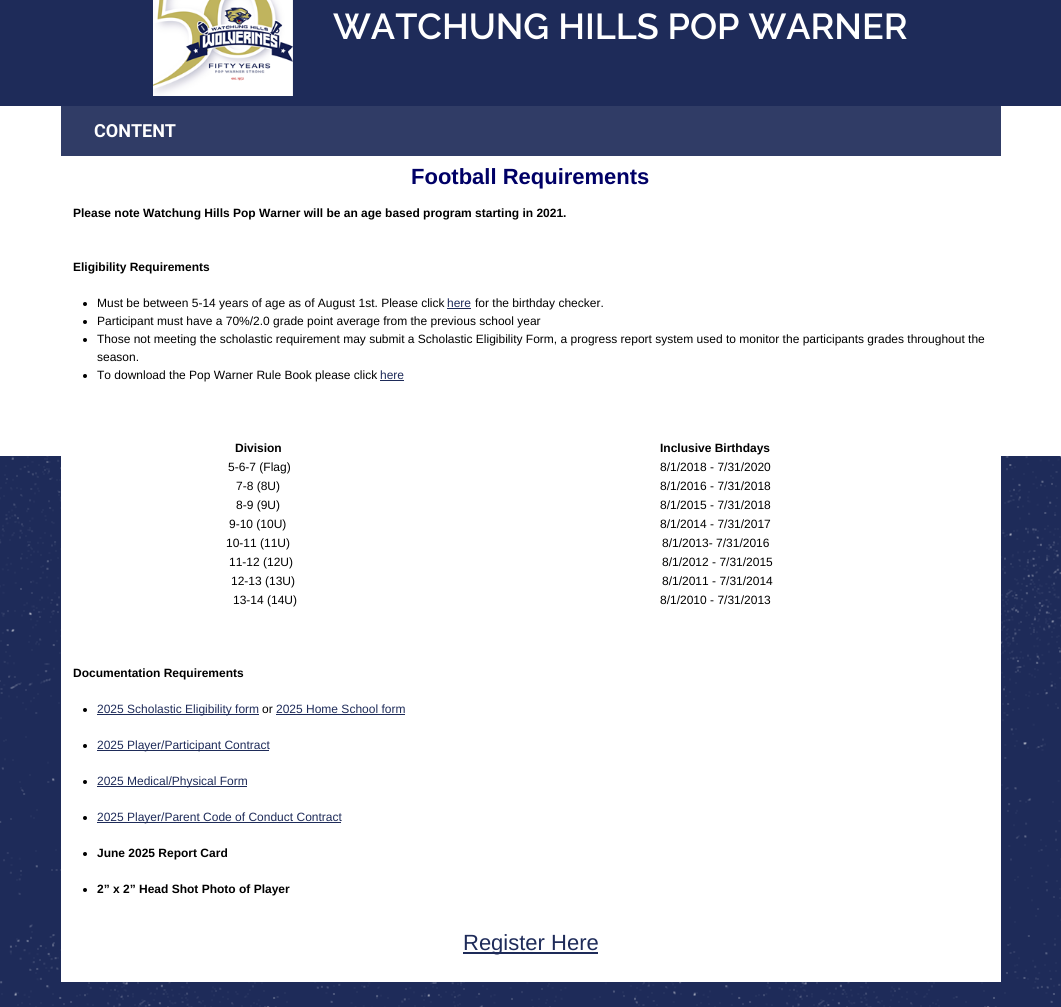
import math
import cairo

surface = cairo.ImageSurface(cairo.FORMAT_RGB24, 1061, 1007)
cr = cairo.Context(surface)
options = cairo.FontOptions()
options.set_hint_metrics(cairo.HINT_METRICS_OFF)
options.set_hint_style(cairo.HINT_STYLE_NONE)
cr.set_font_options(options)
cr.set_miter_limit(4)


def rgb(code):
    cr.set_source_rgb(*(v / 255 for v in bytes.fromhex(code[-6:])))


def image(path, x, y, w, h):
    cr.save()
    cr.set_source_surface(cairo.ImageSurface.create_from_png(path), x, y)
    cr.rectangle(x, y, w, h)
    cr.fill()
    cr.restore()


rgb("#1e2b59")
cr.paint()
image("img/1.png", 0, 456, 1061, 551)
image("img/2.png", 153, 0, 140, 96)
for x, y, w, h, color in [
    (0, 106, 1061, 350, "#ffffff"),
    (61, 106, 940, 50, "#303c66"),
    (61, 456, 940, 526, "#ffffff"),
]:
    rgb(color)
    cr.rectangle(x, y, w, h)
    cr.fill()
rgb("#000000")
cr.arc(85, 304, 2, 0, 2 * math.pi)
cr.fill()
rgb("#1e2b59")
cr.rectangle(447, 308, 24, 1)
cr.fill()
rgb("#000000")
cr.arc(85, 322, 2, 0, 2 * math.pi)
cr.fill()
cr.arc(85, 340, 2, 0, 2 * math.pi)
cr.fill()
cr.arc(85, 376, 2, 0, 2 * math.pi)
cr.fill()
rgb("#1e2b59")
cr.rectangle(380, 380, 24, 1)
cr.fill()
rgb("#000000")
cr.arc(85, 710, 2, 0, 2 * math.pi)
cr.fill()
rgb("#1e2b59")
cr.rectangle(97, 714, 162, 1)
cr.fill()
cr.rectangle(276, 714, 129, 1)
cr.fill()
rgb("#000000")
cr.arc(85, 746, 2, 0, 2 * math.pi)
cr.fill()
rgb("#1e2b59")
cr.rectangle(97, 750, 172, 1)
cr.fill()
rgb("#000000")
cr.arc(85, 782, 2, 0, 2 * math.pi)
cr.fill()
rgb("#1e2b59")
cr.rectangle(97, 786, 150, 1)
cr.fill()
rgb("#000000")
cr.arc(85, 818, 2, 0, 2 * math.pi)
cr.fill()
rgb("#1e2b59")
cr.rectangle(97, 822, 244, 1)
cr.fill()
rgb("#000000")
cr.arc(85, 854, 2, 0, 2 * math.pi)
cr.fill()
cr.arc(85, 890, 2, 0, 2 * math.pi)
cr.fill()
rgb("#1e2b59")
cr.rectangle(463, 952, 135, 2)
cr.fill()
cr.select_font_face("Raleway SemiBold")
cr.set_font_size(36)
rgb("#ffffff")
cr.move_to(333, 39)
cr.show_text("WATCHUNG HILLS POP WARNER")
cr.select_font_face("Roboto", cairo.FONT_SLANT_NORMAL, cairo.FONT_WEIGHT_BOLD)
cr.set_font_size(18)
cr.move_to(94, 137)
cr.show_text("CONTENT")
cr.select_font_face("Liberation Sans", cairo.FONT_SLANT_NORMAL, cairo.FONT_WEIGHT_BOLD)
cr.set_font_size(22)
rgb("#000066")
cr.move_to(411, 184)
cr.show_text("Football Requirements")
cr.set_font_size(12)
rgb("#000000")
cr.move_to(73, 217)
cr.show_text("Please note Watchung Hills Pop Warner will be an age based program starting in 2021.")
cr.move_to(73, 271)
cr.show_text("Eligibility Requirements")
cr.select_font_face("Liberation Sans")
cr.move_to(97, 307)
cr.show_text("Must be between 5-14 years of age as of August 1st. Please click")
rgb("#1e2b59")
cr.move_to(447, 307)
cr.show_text("here")
rgb("#000000")
for x, y, s in [
    (475, 307, "for the birthday checker."),
    (97, 325, "Participant must have a 70%/2.0 grade point average from the previous school year"),
    (97, 343, "Those not meeting the scholastic requirement may submit a Scholastic Eligibility Form, a progress report system used to monitor the participants grades throughout the"),
    (97, 361, "season."),
    (97, 379, "To download the Pop Warner Rule Book please click"),
]:
    cr.move_to(x, y)
    cr.show_text(s)
rgb("#1e2b59")
cr.move_to(380, 379)
cr.show_text("here")
cr.select_font_face("Liberation Sans", cairo.FONT_SLANT_NORMAL, cairo.FONT_WEIGHT_BOLD)
rgb("#000000")
cr.move_to(235, 452)
cr.show_text("Division")
cr.move_to(660, 452)
cr.show_text("Inclusive Birthdays")
cr.select_font_face("Liberation Sans")
for x, y, s in [
    (228, 471, "5-6-7 (Flag)"),
    (660, 471, "8/1/2018 - 7/31/2020"),
    (236, 490, "7-8 (8U)"),
    (660, 490, "8/1/2016 - 7/31/2018"),
    (236, 509, "8-9 (9U)"),
    (660, 509, "8/1/2015 - 7/31/2018"),
    (229, 528, "9-10 (10U)"),
    (660, 528, "8/1/2014 - 7/31/2017"),
    (226, 547, "10-11 (11U)"),
    (662, 547, "8/1/2013- 7/31/2016"),
    (229, 566, "11-12 (12U)"),
    (662, 566, "8/1/2012 - 7/31/2015"),
    (231, 585, "12-13 (13U)"),
    (662, 585, "8/1/2011 - 7/31/2014"),
    (233, 604, "13-14 (14U)"),
    (660, 604, "8/1/2010 - 7/31/2013"),
]:
    cr.move_to(x, y)
    cr.show_text(s)
cr.select_font_face("Liberation Sans", cairo.FONT_SLANT_NORMAL, cairo.FONT_WEIGHT_BOLD)
cr.move_to(73, 677)
cr.show_text("Documentation Requirements")
cr.select_font_face("Liberation Sans")
rgb("#1e2b59")
cr.move_to(97, 713)
cr.show_text("2025 Scholastic Eligibility form")
rgb("#000000")
cr.move_to(262, 713)
cr.show_text("or")
rgb("#1e2b59")
for x, y, s in [
    (276, 713, "2025 Home School form"),
    (97, 749, "2025 Player/Participant Contract"),
    (97, 785, "2025 Medical/Physical Form"),
    (97, 821, "2025 Player/Parent Code of Conduct Contract"),
]:
    cr.move_to(x, y)
    cr.show_text(s)
cr.select_font_face("Liberation Sans", cairo.FONT_SLANT_NORMAL, cairo.FONT_WEIGHT_BOLD)
rgb("#000000")
cr.move_to(97, 857)
cr.show_text("June 2025 Report Card")
cr.move_to(97, 893)
cr.show_text("2” x 2” Head Shot Photo of Player")
cr.select_font_face("Liberation Sans")
cr.set_font_size(22)
rgb("#1e2b59")
cr.move_to(463, 950)
cr.show_text("Register Here")
surface.write_to_png("page.png")
